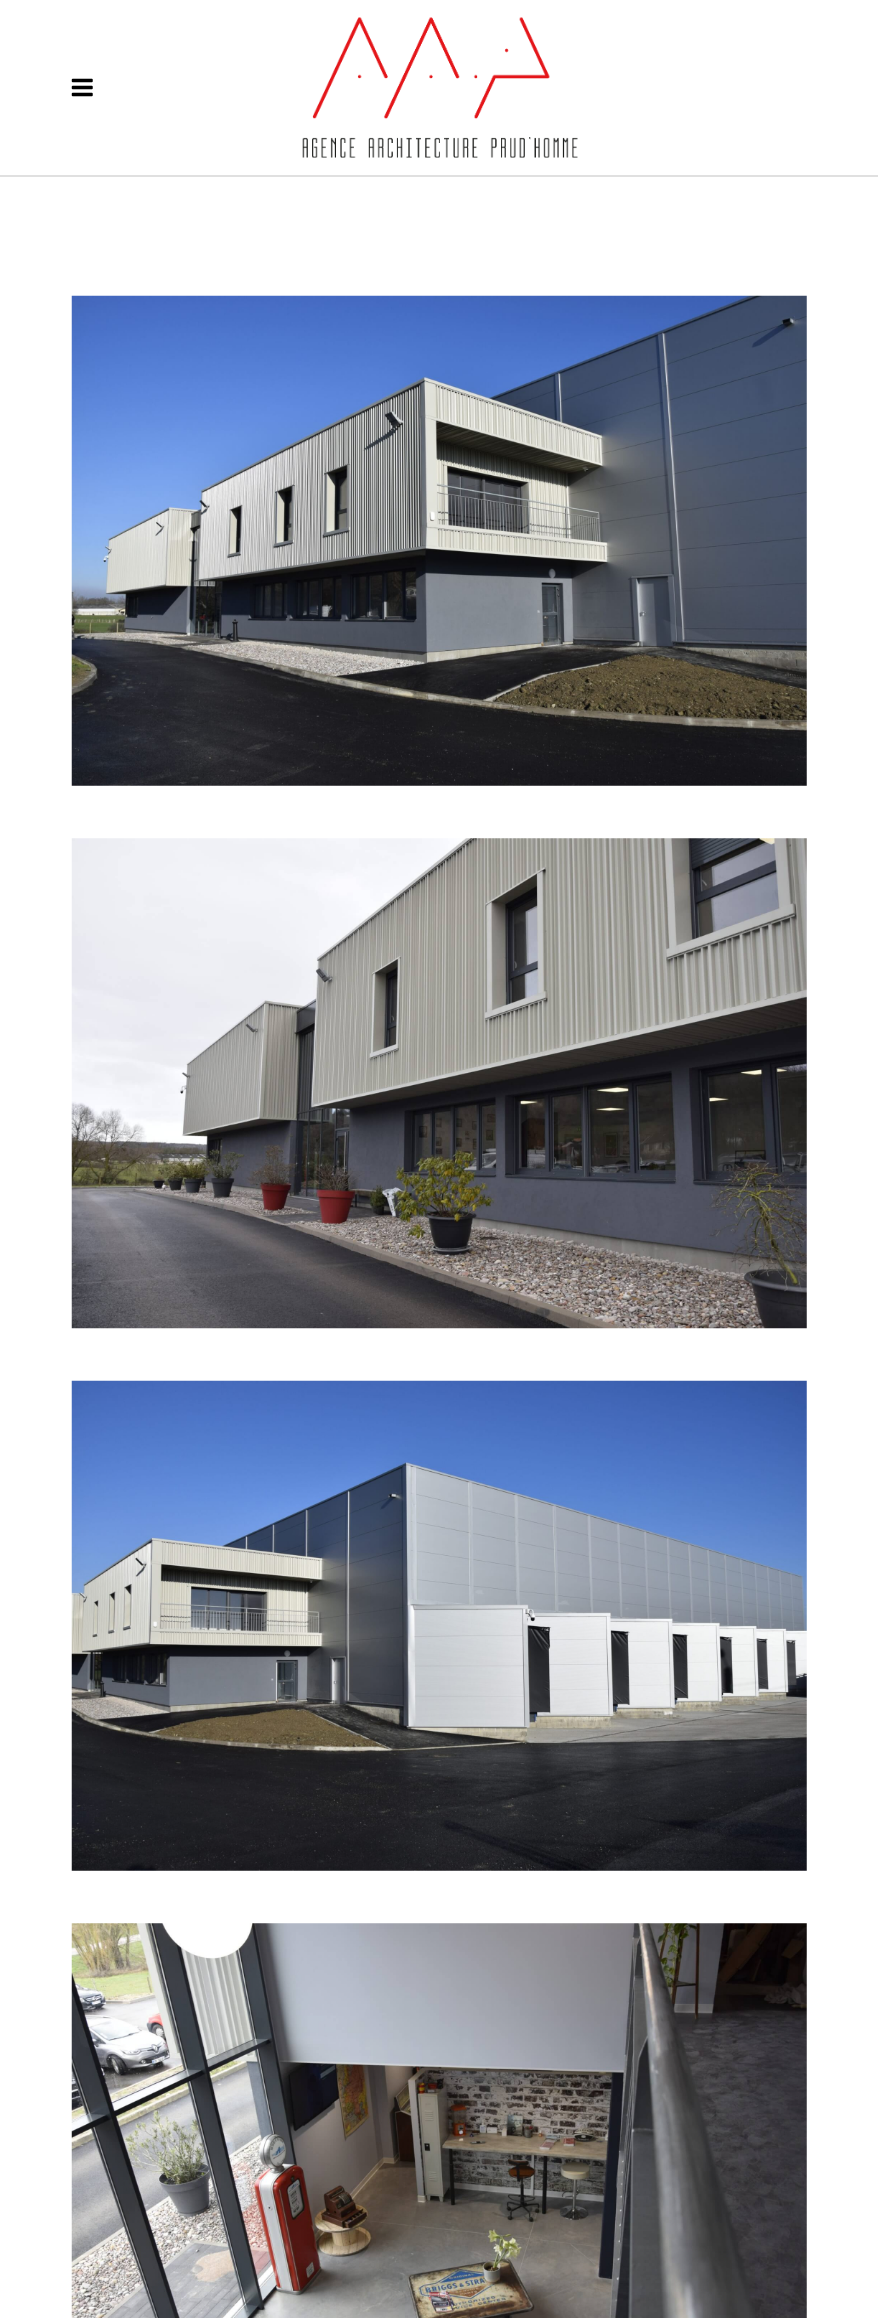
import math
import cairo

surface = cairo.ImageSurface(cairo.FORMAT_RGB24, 878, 2318)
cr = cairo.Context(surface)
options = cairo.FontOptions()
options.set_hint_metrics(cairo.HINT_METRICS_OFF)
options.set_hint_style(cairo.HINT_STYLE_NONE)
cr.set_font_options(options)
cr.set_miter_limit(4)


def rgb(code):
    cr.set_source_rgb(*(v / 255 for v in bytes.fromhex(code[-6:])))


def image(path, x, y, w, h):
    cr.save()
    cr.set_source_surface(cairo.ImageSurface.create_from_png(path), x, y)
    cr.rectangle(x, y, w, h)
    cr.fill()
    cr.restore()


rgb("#ffffff")
cr.paint()
rgb("#e0e0e0")
cr.rectangle(0, 175, 878, 2)
cr.fill()
image("img/1.png", 71, 78, 22, 19)
image("img/2.png", 302, 17, 276, 141)
image("img/3.png", 71, 295, 736, 491)
image("img/4.png", 71, 838, 736, 491)
image("img/5.png", 71, 1380, 736, 491)
image("img/6.png", 71, 1923, 736, 395)
surface.write_to_png("page.png")
